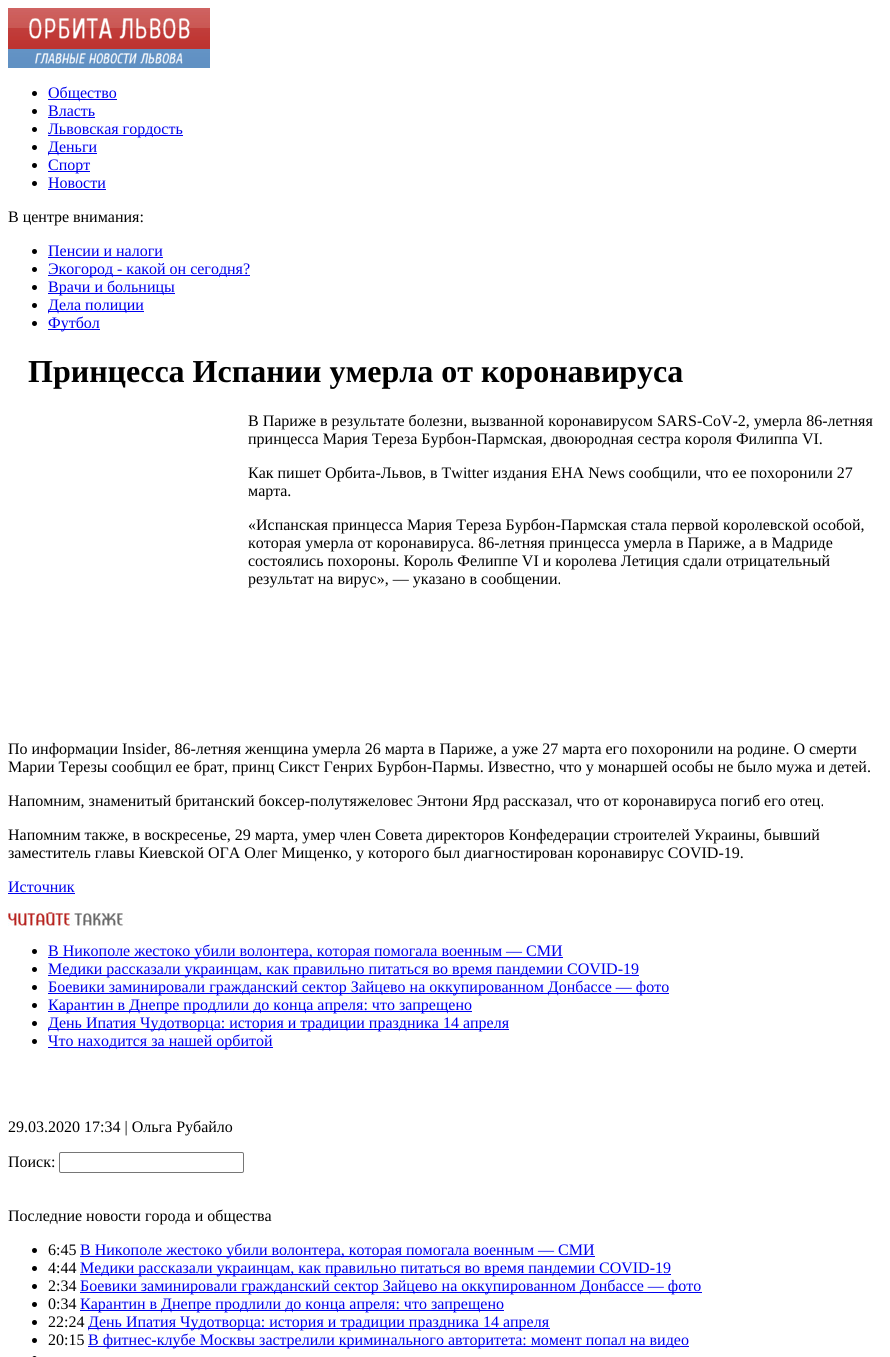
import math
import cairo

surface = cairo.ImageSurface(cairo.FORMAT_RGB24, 890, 1357)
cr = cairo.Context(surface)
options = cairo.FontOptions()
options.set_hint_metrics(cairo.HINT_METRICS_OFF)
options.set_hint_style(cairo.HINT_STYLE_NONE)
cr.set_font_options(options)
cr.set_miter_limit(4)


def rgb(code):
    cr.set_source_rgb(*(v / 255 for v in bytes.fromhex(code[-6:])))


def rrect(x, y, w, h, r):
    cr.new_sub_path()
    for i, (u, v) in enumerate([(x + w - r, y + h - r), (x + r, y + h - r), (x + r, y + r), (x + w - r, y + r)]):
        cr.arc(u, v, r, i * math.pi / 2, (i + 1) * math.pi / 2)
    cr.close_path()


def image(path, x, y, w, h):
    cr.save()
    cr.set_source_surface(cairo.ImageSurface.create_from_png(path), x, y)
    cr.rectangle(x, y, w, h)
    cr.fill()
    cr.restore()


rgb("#ffffff")
cr.paint()
image("img/1.png", 8, 8, 202, 60)
rgb("#000000")
cr.arc(34.5, 93.5, 2.5, 0, 2 * math.pi)
cr.fill()
rgb("#0000ee")
cr.rectangle(48, 99, 69, 1)
cr.fill()
rgb("#000000")
cr.arc(34.5, 111.5, 2.5, 0, 2 * math.pi)
cr.fill()
rgb("#0000ee")
cr.rectangle(48, 117, 47, 1)
cr.fill()
rgb("#000000")
cr.arc(34.5, 129.5, 2.5, 0, 2 * math.pi)
cr.fill()
rgb("#0000ee")
cr.rectangle(48, 135, 135, 1)
cr.fill()
rgb("#000000")
cr.arc(34.5, 147.5, 2.5, 0, 2 * math.pi)
cr.fill()
rgb("#0000ee")
cr.rectangle(48, 153, 49, 1)
cr.fill()
rgb("#000000")
cr.arc(34.5, 165.5, 2.5, 0, 2 * math.pi)
cr.fill()
rgb("#0000ee")
cr.rectangle(48, 171, 42, 1)
cr.fill()
rgb("#000000")
cr.arc(34.5, 183.5, 2.5, 0, 2 * math.pi)
cr.fill()
rgb("#0000ee")
cr.rectangle(48, 189, 58, 1)
cr.fill()
rgb("#000000")
cr.arc(34.5, 251.5, 2.5, 0, 2 * math.pi)
cr.fill()
rgb("#0000ee")
cr.rectangle(48, 257, 115, 1)
cr.fill()
rgb("#000000")
cr.arc(34.5, 269.5, 2.5, 0, 2 * math.pi)
cr.fill()
rgb("#0000ee")
cr.rectangle(48, 275, 202, 1)
cr.fill()
rgb("#000000")
cr.arc(34.5, 287.5, 2.5, 0, 2 * math.pi)
cr.fill()
rgb("#0000ee")
cr.rectangle(48, 293, 127, 1)
cr.fill()
rgb("#000000")
cr.arc(34.5, 305.5, 2.5, 0, 2 * math.pi)
cr.fill()
rgb("#0000ee")
cr.rectangle(48, 311, 96, 1)
cr.fill()
rgb("#000000")
cr.arc(34.5, 323.5, 2.5, 0, 2 * math.pi)
cr.fill()
rgb("#0000ee")
cr.rectangle(48, 329, 52, 1)
cr.fill()
cr.rectangle(8, 893, 67, 1)
cr.fill()
image("img/2.png", 8, 912, 120, 14)
rgb("#000000")
cr.arc(34.5, 951.5, 2.5, 0, 2 * math.pi)
cr.fill()
rgb("#0000ee")
cr.rectangle(48, 957, 515, 1)
cr.fill()
rgb("#000000")
cr.arc(34.5, 969.5, 2.5, 0, 2 * math.pi)
cr.fill()
rgb("#0000ee")
cr.rectangle(48, 975, 591, 1)
cr.fill()
rgb("#000000")
cr.arc(34.5, 987.5, 2.5, 0, 2 * math.pi)
cr.fill()
rgb("#0000ee")
cr.rectangle(48, 993, 621, 1)
cr.fill()
rgb("#000000")
cr.arc(34.5, 1005.5, 2.5, 0, 2 * math.pi)
cr.fill()
rgb("#0000ee")
cr.rectangle(48, 1011, 424, 1)
cr.fill()
rgb("#000000")
cr.arc(34.5, 1023.5, 2.5, 0, 2 * math.pi)
cr.fill()
rgb("#0000ee")
cr.rectangle(48, 1029, 461, 1)
cr.fill()
rgb("#000000")
cr.arc(34.5, 1041.5, 2.5, 0, 2 * math.pi)
cr.fill()
rgb("#0000ee")
cr.rectangle(48, 1047, 225, 1)
cr.fill()
rrect(59.5, 1152.5, 184, 20, 1.5)
rgb("#767676")
cr.set_line_width(1)
cr.stroke()
rgb("#000000")
cr.arc(34.5, 1250.5, 2.5, 0, 2 * math.pi)
cr.fill()
rgb("#0000ee")
cr.rectangle(80, 1256, 515, 1)
cr.fill()
rgb("#000000")
cr.arc(34.5, 1268.5, 2.5, 0, 2 * math.pi)
cr.fill()
rgb("#0000ee")
cr.rectangle(80, 1274, 591, 1)
cr.fill()
rgb("#000000")
cr.arc(34.5, 1286.5, 2.5, 0, 2 * math.pi)
cr.fill()
rgb("#0000ee")
cr.rectangle(80, 1292, 622, 1)
cr.fill()
rgb("#000000")
cr.arc(34.5, 1304.5, 2.5, 0, 2 * math.pi)
cr.fill()
rgb("#0000ee")
cr.rectangle(80, 1310, 424, 1)
cr.fill()
rgb("#000000")
cr.arc(34.5, 1322.5, 2.5, 0, 2 * math.pi)
cr.fill()
rgb("#0000ee")
cr.rectangle(88, 1328, 462, 1)
cr.fill()
rgb("#000000")
cr.arc(34.5, 1340.5, 2.5, 0, 2 * math.pi)
cr.fill()
rgb("#0000ee")
cr.rectangle(88, 1346, 601, 1)
cr.fill()
rgb("#000000")
rrect(32, 1356, 5, 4, 2.5)
cr.fill()
cr.select_font_face("Liberation Serif")
cr.set_font_size(16)
rgb("#0000ee")
for x, y, s in [
    (48, 98, "Общество"),
    (48, 116, "Власть"),
    (48, 134, "Львовская гордость"),
    (48, 152, "Деньги"),
    (48, 170, "Спорт"),
    (48, 188, "Новости"),
]:
    cr.move_to(x, y)
    cr.show_text(s)
rgb("#000000")
cr.move_to(8, 222)
cr.show_text("В центре внимания:")
rgb("#0000ee")
for x, y, s in [
    (48, 256, "Пенсии и налоги"),
    (48, 274, "Экогород - какой он сегодня?"),
    (48, 292, "Врачи и больницы"),
    (48, 310, "Дела полиции"),
    (48, 328, "Футбол"),
]:
    cr.move_to(x, y)
    cr.show_text(s)
cr.select_font_face("Liberation Serif", cairo.FONT_SLANT_NORMAL, cairo.FONT_WEIGHT_BOLD)
cr.set_font_size(32)
rgb("#000000")
cr.move_to(28, 382)
cr.show_text("Принцесса Испании умерла от коронавируса")
cr.select_font_face("Liberation Serif")
cr.set_font_size(16)
for x, y, s in [
    (248, 426, "В Париже в результате болезни, вызванной коронавирусом SARS-CoV-2, умерла 86-летняя"),
    (248, 444, "принцесса Мария Тереза Бурбон-Пармская, двоюродная сестра короля Филиппа VI."),
    (248, 478, "Как пишет Орбита-Львов, в Twitter издания EHA News сообщили, что ее похоронили 27"),
    (248, 496, "марта."),
    (248, 530, "«Испанская принцесса Мария Тереза Бурбон-Пармская стала первой королевской особой,"),
    (248, 548, "которая умерла от коронавируса. 86-летняя принцесса умерла в Париже, а в Мадриде"),
    (248, 566, "состоялись похороны. Король Фелиппе VI и королева Летиция сдали отрицательный"),
    (248, 584, "результат на вирус», — указано в сообщении."),
    (8, 754, "По информации Insider, 86-летняя женщина умерла 26 марта в Париже, а уже 27 марта его похоронили на родине. О смерти"),
    (8, 772, "Марии Терезы сообщил ее брат, принц Сикст Генрих Бурбон-Пармы. Известно, что у монаршей особы не было мужа и детей."),
    (8, 806, "Напомним, знаменитый британский боксер-полутяжеловес Энтони Ярд рассказал, что от коронавируса погиб его отец."),
    (8, 840, "Напомним также, в воскресенье, 29 марта, умер член Совета директоров Конфедерации строителей Украины, бывший"),
    (8, 858, "заместитель главы Киевской ОГА Олег Мищенко, у которого был диагностирован коронавирус COVID-19."),
]:
    cr.move_to(x, y)
    cr.show_text(s)
rgb("#0000ee")
for x, y, s in [
    (8, 892, "Источник"),
    (48, 956, "В Никополе жестоко убили волонтера, которая помогала военным — СМИ"),
    (48, 974, "Медики рассказали украинцам, как правильно питаться во время пандемии COVID-19"),
    (48, 992, "Боевики заминировали гражданский сектор Зайцево на оккупированном Донбассе — фото"),
    (48, 1010, "Карантин в Днепре продлили до конца апреля: что запрещено"),
    (48, 1028, "День Ипатия Чудотворца: история и традиции праздника 14 апреля"),
    (48, 1046, "Что находится за нашей орбитой"),
]:
    cr.move_to(x, y)
    cr.show_text(s)
rgb("#000000")
for x, y, s in [
    (8, 1132, "29.03.2020 17:34 | Ольга Рубайло"),
    (8, 1167, "Поиск:"),
    (8, 1221, "Последние новости города и общества"),
    (48, 1255, "6:45"),
]:
    cr.move_to(x, y)
    cr.show_text(s)
rgb("#0000ee")
cr.move_to(80, 1255)
cr.show_text("В Никополе жестоко убили волонтера, которая помогала военным — СМИ")
rgb("#000000")
cr.move_to(48, 1273)
cr.show_text("4:44")
rgb("#0000ee")
cr.move_to(80, 1273)
cr.show_text("Медики рассказали украинцам, как правильно питаться во время пандемии COVID-19")
rgb("#000000")
cr.move_to(48, 1291)
cr.show_text("2:34")
rgb("#0000ee")
cr.move_to(80, 1291)
cr.show_text("Боевики заминировали гражданский сектор Зайцево на оккупированном Донбассе — фото")
rgb("#000000")
cr.move_to(48, 1309)
cr.show_text("0:34")
rgb("#0000ee")
cr.move_to(80, 1309)
cr.show_text("Карантин в Днепре продлили до конца апреля: что запрещено")
rgb("#000000")
cr.move_to(48, 1327)
cr.show_text("22:24")
rgb("#0000ee")
cr.move_to(88, 1327)
cr.show_text("День Ипатия Чудотворца: история и традиции праздника 14 апреля")
rgb("#000000")
cr.move_to(48, 1345)
cr.show_text("20:15")
rgb("#0000ee")
cr.move_to(88, 1345)
cr.show_text("В фитнес-клубе Москвы застрелили криминального авторитета: момент попал на видео")
surface.write_to_png("page.png")
